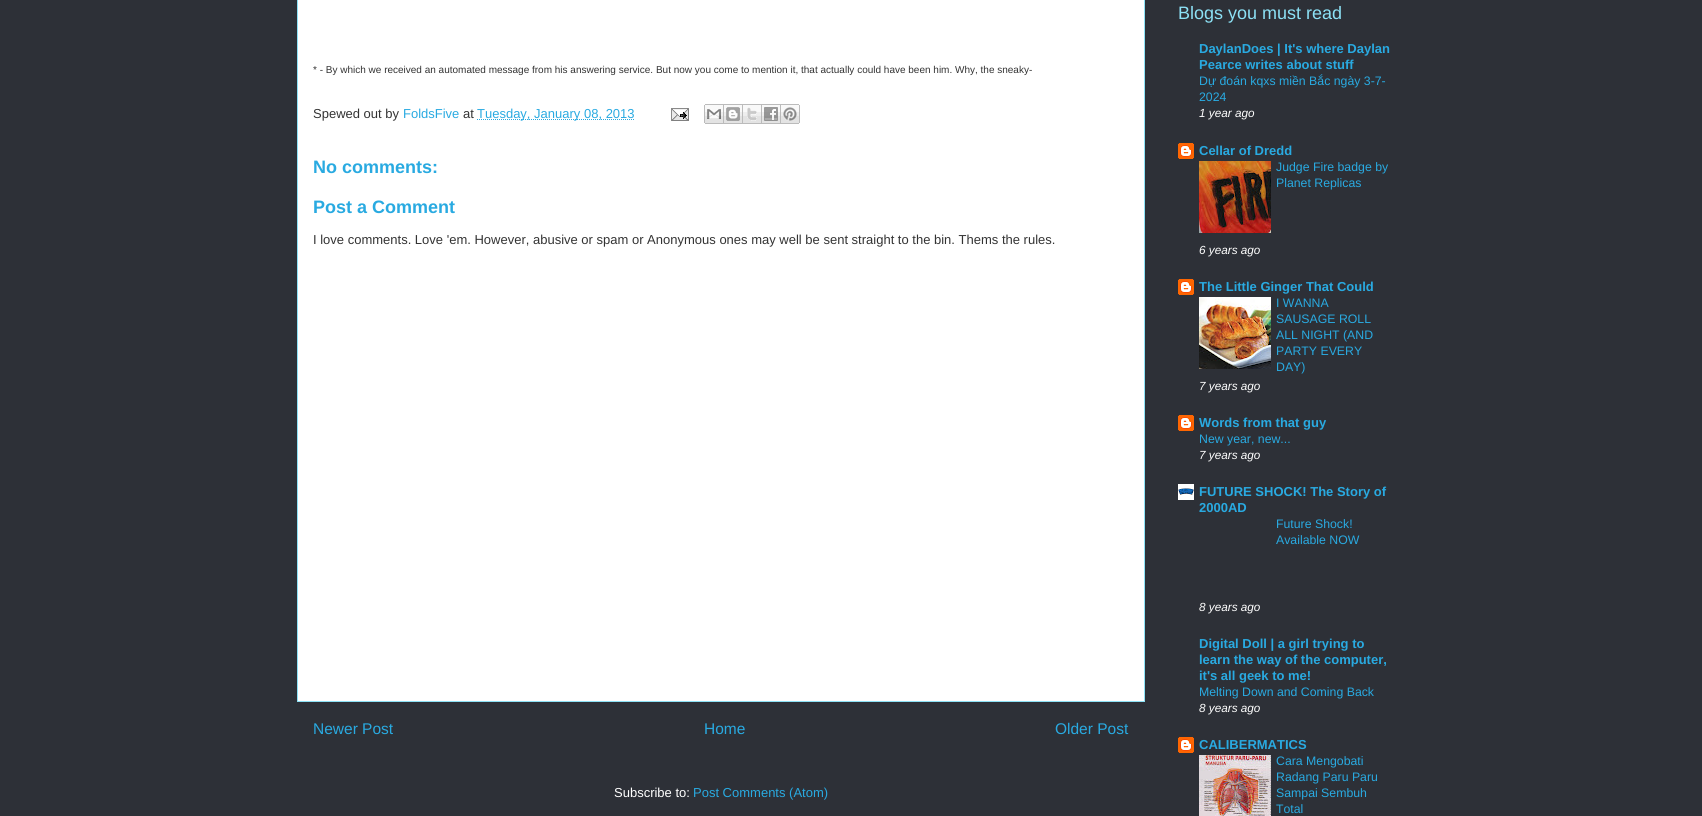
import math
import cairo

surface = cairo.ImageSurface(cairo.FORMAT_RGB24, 1702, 816)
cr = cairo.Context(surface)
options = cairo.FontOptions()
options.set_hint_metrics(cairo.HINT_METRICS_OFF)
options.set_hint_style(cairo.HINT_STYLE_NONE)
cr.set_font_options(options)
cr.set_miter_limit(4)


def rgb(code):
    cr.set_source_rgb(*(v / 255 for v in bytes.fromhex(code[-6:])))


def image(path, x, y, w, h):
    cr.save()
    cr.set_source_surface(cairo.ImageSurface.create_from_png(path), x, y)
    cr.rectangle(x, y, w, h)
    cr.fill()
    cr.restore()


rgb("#2d3037")
cr.paint()
rgb("#ffffff")
cr.rectangle(297.5, -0.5, 847, 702)
cr.fill_preserve()
rgb("#8ce1f5")
cr.set_line_width(1)
cr.stroke()
cr.new_path()
cr.move_to(477, 119.5)
cr.line_to(634.5, 119.5)
rgb("#29aae1")
cr.set_dash([1, 1])
cr.stroke()
image("img/1.png", 671, 108, 18, 13)
image("img/2.png", 704, 104, 20, 20)
image("img/3.png", 724, 104, 19, 20)
image("img/4.png", 743, 104, 19, 20)
image("img/5.png", 762, 104, 19, 20)
image("img/6.png", 781, 104, 19, 20)
image("img/7.png", 1178, 143, 16, 16)
image("img/8.png", 1199, 161, 72, 72)
image("img/7.png", 1178, 279, 16, 16)
image("img/9.png", 1199, 297, 72, 72)
image("img/7.png", 1178, 415, 16, 16)
image("img/10.png", 1178, 484, 16, 16)
image("img/7.png", 1178, 737, 16, 16)
image("img/11.png", 1199, 755, 72, 61)
cr.select_font_face("Liberation Sans")
cr.set_font_size(10)
rgb("#333333")
cr.move_to(313, 73)
cr.show_text("* - By which we received an automated message from his answering service. But now you come to mention it, that actually could have been him. Why, the sneaky-")
cr.set_font_size(13)
cr.move_to(313, 118)
cr.show_text("Spewed out by")
rgb("#29aae1")
cr.move_to(403, 118)
cr.show_text("FoldsFive")
rgb("#333333")
cr.move_to(463, 118)
cr.show_text("at")
rgb("#29aae1")
cr.move_to(477, 118)
cr.show_text("Tuesday, January 08, 2013")
cr.select_font_face("Liberation Sans", cairo.FONT_SLANT_NORMAL, cairo.FONT_WEIGHT_BOLD)
cr.set_font_size(18)
cr.move_to(313, 173)
cr.show_text("No comments:")
cr.move_to(313, 213)
cr.show_text("Post a Comment")
cr.select_font_face("Liberation Sans")
cr.set_font_size(13)
rgb("#333333")
cr.move_to(313, 244)
cr.show_text("I love comments. Love 'em. However, abusive or spam or Anonymous ones may well be sent straight to the bin. Thems the rules.")
cr.set_font_size(15.5)
rgb("#29aae1")
for x, y, s in [
    (313, 734, "Newer Post"),
    (704, 734, "Home"),
    (1055, 734, "Older Post"),
]:
    cr.move_to(x, y)
    cr.show_text(s)
cr.set_font_size(13)
rgb("#ffffff")
cr.move_to(614, 797)
cr.show_text("Subscribe to:")
rgb("#29aae1")
cr.move_to(693, 797)
cr.show_text("Post Comments (Atom)")
cr.set_font_size(18)
rgb("#8ce1f5")
cr.move_to(1178, 19)
cr.show_text("Blogs you must read")
cr.select_font_face("Liberation Sans", cairo.FONT_SLANT_NORMAL, cairo.FONT_WEIGHT_BOLD)
cr.set_font_size(13)
rgb("#29aae1")
cr.move_to(1199, 53)
cr.show_text("DaylanDoes | It's where Daylan")
cr.move_to(1199, 69)
cr.show_text("Pearce writes about stuff")
cr.select_font_face("Liberation Sans")
cr.set_font_size(12.3)
cr.move_to(1199, 85)
cr.show_text("Dự đoán kqxs miền Bắc ngày 3-7-")
cr.move_to(1199, 101)
cr.show_text("2024")
cr.select_font_face("Liberation Sans", cairo.FONT_SLANT_ITALIC)
cr.set_font_size(11.75)
rgb("#ffffff")
cr.move_to(1199, 117)
cr.show_text("1 year ago")
cr.select_font_face("Liberation Sans", cairo.FONT_SLANT_NORMAL, cairo.FONT_WEIGHT_BOLD)
cr.set_font_size(13)
rgb("#29aae1")
cr.move_to(1199, 155)
cr.show_text("Cellar of Dredd")
cr.select_font_face("Liberation Sans")
cr.set_font_size(12.3)
cr.move_to(1276, 171)
cr.show_text("Judge Fire badge by")
cr.move_to(1276, 187)
cr.show_text("Planet Replicas")
cr.select_font_face("Liberation Sans", cairo.FONT_SLANT_ITALIC)
cr.set_font_size(11.75)
rgb("#ffffff")
cr.move_to(1199, 254)
cr.show_text("6 years ago")
cr.select_font_face("Liberation Sans", cairo.FONT_SLANT_NORMAL, cairo.FONT_WEIGHT_BOLD)
cr.set_font_size(13)
rgb("#29aae1")
cr.move_to(1199, 291)
cr.show_text("The Little Ginger That Could")
cr.select_font_face("Liberation Sans")
cr.set_font_size(12.3)
for x, y, s in [
    (1276, 307, "I WANNA"),
    (1276, 323, "SAUSAGE ROLL"),
    (1276, 339, "ALL NIGHT (AND"),
    (1276, 355, "PARTY EVERY"),
    (1276, 371, "DAY)"),
]:
    cr.move_to(x, y)
    cr.show_text(s)
cr.select_font_face("Liberation Sans", cairo.FONT_SLANT_ITALIC)
cr.set_font_size(11.75)
rgb("#ffffff")
cr.move_to(1199, 390)
cr.show_text("7 years ago")
cr.select_font_face("Liberation Sans", cairo.FONT_SLANT_NORMAL, cairo.FONT_WEIGHT_BOLD)
cr.set_font_size(13)
rgb("#29aae1")
cr.move_to(1199, 427)
cr.show_text("Words from that guy")
cr.select_font_face("Liberation Sans")
cr.set_font_size(12.3)
cr.move_to(1199, 443)
cr.show_text("New year, new...")
cr.select_font_face("Liberation Sans", cairo.FONT_SLANT_ITALIC)
cr.set_font_size(11.75)
rgb("#ffffff")
cr.move_to(1199, 459)
cr.show_text("7 years ago")
cr.select_font_face("Liberation Sans", cairo.FONT_SLANT_NORMAL, cairo.FONT_WEIGHT_BOLD)
cr.set_font_size(13)
rgb("#29aae1")
cr.move_to(1199, 496)
cr.show_text("FUTURE SHOCK! The Story of")
cr.move_to(1199, 512)
cr.show_text("2000AD")
cr.select_font_face("Liberation Sans")
cr.set_font_size(12.3)
cr.move_to(1276, 528)
cr.show_text("Future Shock!")
cr.move_to(1276, 544)
cr.show_text("Available NOW")
cr.select_font_face("Liberation Sans", cairo.FONT_SLANT_ITALIC)
cr.set_font_size(11.75)
rgb("#ffffff")
cr.move_to(1199, 611)
cr.show_text("8 years ago")
cr.select_font_face("Liberation Sans", cairo.FONT_SLANT_NORMAL, cairo.FONT_WEIGHT_BOLD)
cr.set_font_size(13)
rgb("#29aae1")
for x, y, s in [
    (1199, 648, "Digital Doll | a girl trying to"),
    (1199, 664, "learn the way of the computer,"),
    (1199, 680, "it's all geek to me!"),
]:
    cr.move_to(x, y)
    cr.show_text(s)
cr.select_font_face("Liberation Sans")
cr.set_font_size(12.3)
cr.move_to(1199, 696)
cr.show_text("Melting Down and Coming Back")
cr.select_font_face("Liberation Sans", cairo.FONT_SLANT_ITALIC)
cr.set_font_size(11.75)
rgb("#ffffff")
cr.move_to(1199, 712)
cr.show_text("8 years ago")
cr.select_font_face("Liberation Sans", cairo.FONT_SLANT_NORMAL, cairo.FONT_WEIGHT_BOLD)
cr.set_font_size(13)
rgb("#29aae1")
cr.move_to(1199, 749)
cr.show_text("CALIBERMATICS")
cr.select_font_face("Liberation Sans")
cr.set_font_size(12.3)
for x, y, s in [
    (1276, 765, "Cara Mengobati"),
    (1276, 781, "Radang Paru Paru"),
    (1276, 797, "Sampai Sembuh"),
    (1276, 813, "Total"),
]:
    cr.move_to(x, y)
    cr.show_text(s)
surface.write_to_png("page.png")
